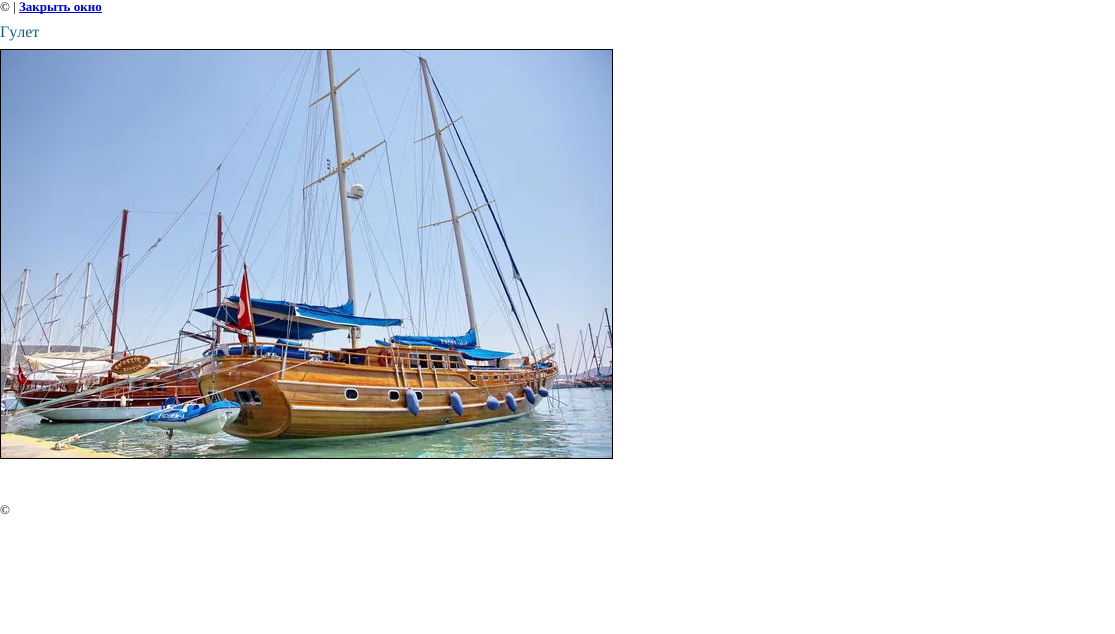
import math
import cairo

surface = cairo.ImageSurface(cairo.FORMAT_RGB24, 1115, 634)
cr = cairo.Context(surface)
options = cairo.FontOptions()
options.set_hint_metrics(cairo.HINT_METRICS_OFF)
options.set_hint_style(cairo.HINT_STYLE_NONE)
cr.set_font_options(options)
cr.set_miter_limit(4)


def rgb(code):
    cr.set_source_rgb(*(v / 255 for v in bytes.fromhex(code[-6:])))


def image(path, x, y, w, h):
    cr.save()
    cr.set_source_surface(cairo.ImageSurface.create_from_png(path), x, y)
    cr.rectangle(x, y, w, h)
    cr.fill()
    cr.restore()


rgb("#ffffff")
cr.paint()
rgb("#0000cc")
cr.rectangle(19, 12, 83, 1)
cr.fill()
cr.rectangle(0.5, 49.5, 612, 409)
rgb("#000000")
cr.set_line_width(1)
cr.stroke()
image("img/1.png", 1, 50, 611, 408)
cr.select_font_face("Liberation Serif")
cr.set_font_size(13)
cr.move_to(0, 11)
cr.show_text("© |")
cr.select_font_face("Liberation Serif", cairo.FONT_SLANT_NORMAL, cairo.FONT_WEIGHT_BOLD)
rgb("#0000cc")
cr.move_to(19, 11)
cr.show_text("Закрыть окно")
cr.select_font_face("Liberation Serif")
cr.set_font_size(16)
rgb("#12578f")
cr.move_to(0, 37)
cr.show_text("Гулет")
cr.set_font_size(13)
rgb("#000000")
cr.move_to(0, 514)
cr.show_text("©")
surface.write_to_png("page.png")
